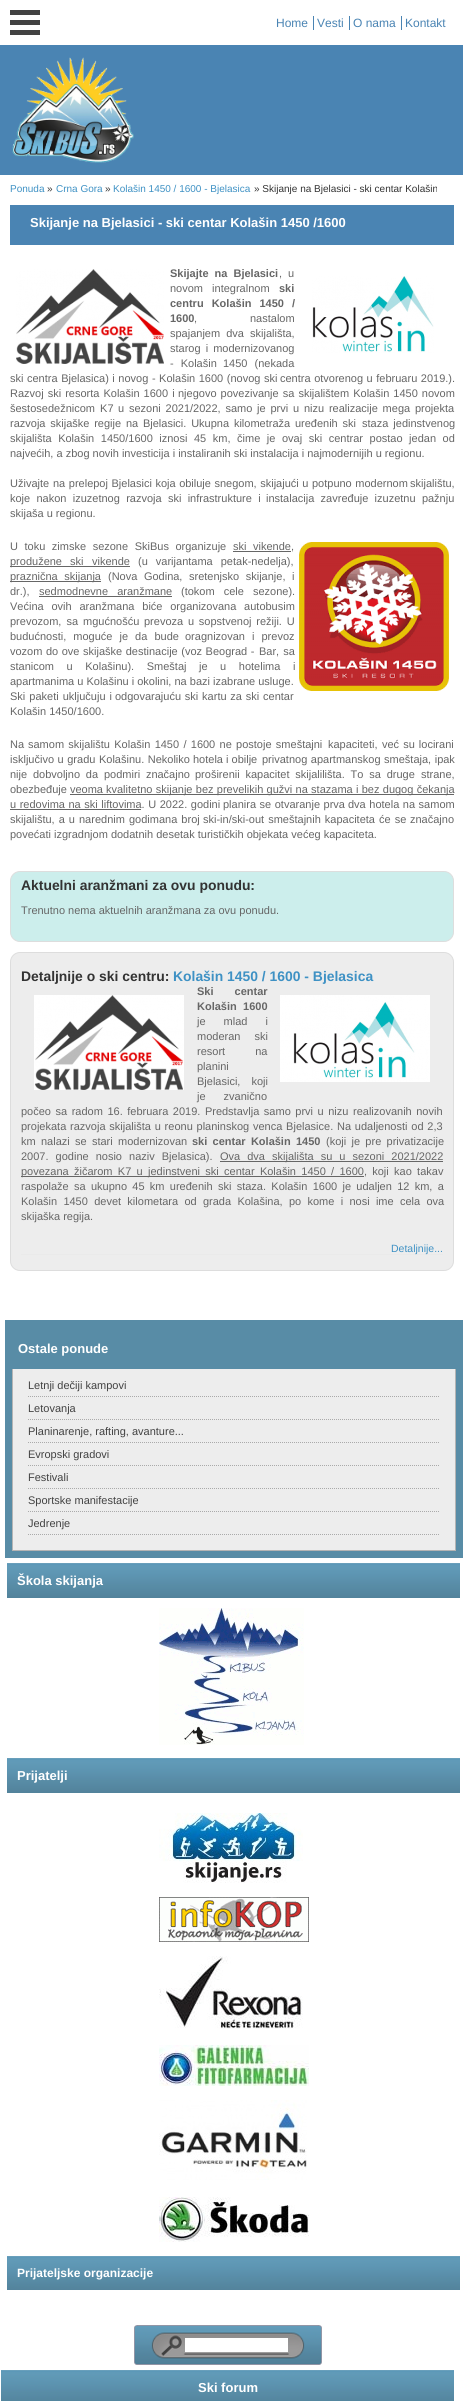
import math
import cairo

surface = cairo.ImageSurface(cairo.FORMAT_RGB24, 463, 2401)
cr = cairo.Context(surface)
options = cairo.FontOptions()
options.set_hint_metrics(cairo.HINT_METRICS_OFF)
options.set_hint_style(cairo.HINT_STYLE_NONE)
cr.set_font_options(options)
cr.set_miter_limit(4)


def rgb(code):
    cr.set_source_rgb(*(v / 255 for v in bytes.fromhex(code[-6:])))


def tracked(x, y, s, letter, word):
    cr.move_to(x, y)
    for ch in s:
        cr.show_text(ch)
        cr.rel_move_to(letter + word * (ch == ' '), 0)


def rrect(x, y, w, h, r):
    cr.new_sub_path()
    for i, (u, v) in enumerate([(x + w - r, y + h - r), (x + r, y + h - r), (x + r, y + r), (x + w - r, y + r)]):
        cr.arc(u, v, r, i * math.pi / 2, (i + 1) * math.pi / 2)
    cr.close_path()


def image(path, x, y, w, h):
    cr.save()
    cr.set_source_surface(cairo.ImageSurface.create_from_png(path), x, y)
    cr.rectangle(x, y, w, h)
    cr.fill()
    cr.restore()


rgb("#4a84b3")
cr.paint()
for x, y, w, h, color in [
    (0, 0, 463, 45, "#ffffff"),
    (10, 10, 30, 5, "#424242"),
    (10, 20, 30, 5, "#424242"),
    (10, 30, 30, 5, "#424242"),
    (313, 16, 1, 14, "#4a84b3"),
    (349, 16, 1, 14, "#4a84b3"),
    (401, 16, 1, 14, "#4a84b3"),
]:
    rgb(color)
    cr.rectangle(x, y, w, h)
    cr.fill()
image("img/1.png", 12, 57, 122, 106)
rgb("#ffffff")
cr.rectangle(0, 175, 463, 2226)
cr.fill()
rgb("#4a84b3")
cr.rectangle(10, 205, 444, 40)
cr.fill()
image("img/2.png", 16, 269, 148, 95)
image("img/3.png", 312, 276, 122, 77)
rgb("#666666")
cr.rectangle(233, 551, 58, 1)
cr.fill()
image("img/4.png", 299, 542, 150, 149)
for x, y, w, h, color in [
    (10, 566, 120, 1, "#666666"),
    (10, 581, 91, 1, "#666666"),
    (39, 596, 133, 1, "#666666"),
    (70, 794, 384, 1, "#666666"),
    (10, 809, 131, 1, "#666666"),
]:
    rgb(color)
    cr.rectangle(x, y, w, h)
    cr.fill()
rgb("#cceeec")
rrect(10.5, 871.5, 443, 70, 9.5)
cr.fill_preserve()
rgb("#dddddd")
cr.set_line_width(1)
cr.stroke()
rgb("#ededed")
rrect(10.5, 952.5, 443, 318, 9.5)
cr.fill_preserve()
rgb("#dddddd")
cr.stroke()
rgb("#eaeaea")
cr.rectangle(21, 1254, 422, 1)
cr.fill()
image("img/5.png", 34, 995, 150, 95)
image("img/6.png", 280, 995, 150, 87)
for x, y, w, h, color in [
    (220, 1161, 223, 1, "#666666"),
    (21, 1176, 343, 1, "#666666"),
    (5, 1320, 458, 238, "#588ca6"),
    (13, 1369, 442, 181, "#ededed"),
    (455, 1369, 1, 182, "#b4b4b4"),
    (12, 1550, 444, 1, "#b4b4b4"),
    (12, 1369, 1, 182, "#b4b4b4"),
]:
    rgb(color)
    cr.rectangle(x, y, w, h)
    cr.fill()
cr.new_path()
cr.move_to(28, 1396.5)
cr.line_to(440, 1396.5)
rgb("#aaaaaa")
cr.set_dash([1, 1])
cr.stroke()
cr.new_path()
cr.move_to(28, 1419.5)
cr.line_to(440, 1419.5)
cr.stroke()
cr.new_path()
cr.move_to(28, 1442.5)
cr.line_to(440, 1442.5)
cr.stroke()
cr.new_path()
cr.move_to(28, 1465.5)
cr.line_to(440, 1465.5)
cr.stroke()
cr.new_path()
cr.move_to(28, 1488.5)
cr.line_to(440, 1488.5)
cr.stroke()
cr.new_path()
cr.move_to(28, 1511.5)
cr.line_to(440, 1511.5)
cr.stroke()
cr.new_path()
cr.move_to(28, 1534.5)
cr.line_to(440, 1534.5)
cr.stroke()
image("img/7.png", 7, 1563, 453, 35)
image("img/8.png", 159, 1608, 145, 137)
image("img/7.png", 7, 1758, 453, 35)
image("img/9.png", 159, 1813, 144, 70)
image("img/10.png", 159, 1897, 150, 45)
image("img/11.png", 159, 1956, 144, 73)
image("img/12.png", 159, 2045, 150, 41)
image("img/13.png", 159, 2100, 148, 80)
image("img/14.png", 159, 2197, 150, 45)
image("img/15.png", 7, 2256, 453, 34)
image("img/16.png", 134, 2325, 188, 40)
rgb("#ffffff")
cr.rectangle(185, 2338, 103, 14)
cr.fill()
image("img/17.png", 1, 2370, 453, 31)
cr.select_font_face("Liberation Sans")
cr.set_font_size(12)
rgb("#4a84b3")
for x, y, s in [
    (276, 27, "Home"),
    (317, 27, "Vesti"),
    (353, 27, "O nama"),
    (405, 27, "Kontakt"),
]:
    cr.move_to(x, y)
    cr.show_text(s)
cr.set_font_size(10)
rgb("#3e91c4")
cr.move_to(10, 192)
cr.show_text("Ponuda")
rgb("#333333")
cr.move_to(47, 192)
cr.show_text("»")
rgb("#3e91c4")
cr.move_to(56, 192)
cr.show_text("Crna Gora")
rgb("#333333")
cr.move_to(105, 192)
cr.show_text("»")
rgb("#3e91c4")
cr.move_to(113, 192)
cr.show_text("Kolašin 1450 / 1600 - Bjelasica")
rgb("#333333")
cr.move_to(254, 192)
cr.show_text("» Skijanje na Bjelasici - ski centar Kolašin")
cr.select_font_face("Liberation Sans", cairo.FONT_SLANT_NORMAL, cairo.FONT_WEIGHT_BOLD)
cr.set_font_size(13)
rgb("#ffffff")
cr.move_to(30, 227)
cr.show_text("Skijanje na Bjelasici - ski centar Kolašin 1450 /1600")
cr.set_font_size(11)
rgb("#666666")
tracked(170, 277, "Skijajte na Bjelasici", 0, 3)
cr.select_font_face("Liberation Sans")
tracked(279, 277, ", u", 0, 3)
tracked(170, 292, "novom integralnom", 0, 6)
cr.select_font_face("Liberation Sans", cairo.FONT_SLANT_NORMAL, cairo.FONT_WEIGHT_BOLD)
cr.move_to(279, 292)
cr.show_text("ski")
tracked(170, 307, "centru Kolašin 1450 /", 0, 5)
cr.move_to(170, 322)
cr.show_text("1600")
cr.select_font_face("Liberation Sans")
cr.move_to(194, 322)
cr.show_text(",")
cr.move_to(250, 322)
cr.show_text("nastalom")
tracked(170, 337, "spajanjem dva skijališta,", 0, 3)
tracked(170, 352, "starog i modernizovanog", 0, 2)
tracked(170, 367, "- Kolašin", 0, 4)
tracked(223, 367, "1450 (nekada", 0, 4)
tracked(10, 382, "ski centra Bjelasica) i novog - Kolašin 1600 (novog ski", 0, 0.5)
tracked(280, 382, "centra otvorenog u februaru 2019.).", 0, 0.5)
tracked(10, 397, "Razvoj ski resorta Kolašin 1600 i", 0, 1)
tracked(178, 397, "njegovo povezivanje sa skijalištem Kolašin 1450 novom", 0, 1)
tracked(10, 412, "šestosedežnicom K7", 0, 2)
tracked(118, 412, "u sezoni 2021/2022, samo je prvi u nizu realizacije mega projekta", 0, 1.75)
tracked(10, 427, "razvoja skijaške regije na Bjelasici. Ukupna kilometraža uređenih ski", 0, 1.75)
tracked(362, 427, "staza jedinstvenog", 0, 2)
tracked(10, 442, "skijališta Kolašin 1450/1600 iznosi 45 km, čime je", 0, 3.5)
tracked(282, 442, "ovaj ski centrar postao jedan od", 0, 3.5)
cr.move_to(10, 457)
cr.show_text("najvećih, a zbog novih investicija i instaliranih ski instalacija i najmodernijih u regionu.")
cr.move_to(10, 487)
cr.show_text("Uživajte")
tracked(53, 487, "na prelepoj Bjelasici koja obiluje snegom, skijajući u potpuno modernom", 0, 0.5)
cr.move_to(410, 487)
cr.show_text("skijalištu,")
tracked(10, 502, "koje nakon izuzetnog razvoja ski infrastrukture i", 0, 3.25)
tracked(266, 502, "instalacija zavređuje izuzetnu pažnju", 0, 3.25)
cr.move_to(10, 517)
cr.show_text("skijaša u regionu.")
tracked(10, 550, "U toku zimske sezone SkiBus organizuje", 0, 3.5)
tracked(233, 550, "ski vikende", 0, 3.5)
cr.move_to(291, 550)
cr.show_text(",")
tracked(10, 565, "produžene ski", 0, 5)
cr.move_to(92, 565)
cr.show_text("vikende")
tracked(138, 565, "(u varijantama petak-nedelja),", 0, 5)
for x, y, s in [
    (10, 580, "praznična skijanja"),
    (108, 580, "(Nova Godina,"),
    (189, 580, "sretenjsko skijanje, i"),
]:
    tracked(x, y, s, 0, 3.5)
cr.move_to(10, 595)
cr.show_text("dr.),")
tracked(39, 595, "sedmodnevne aranžmane", 0, 6)
tracked(181, 595, "(tokom cele sezone).", 0, 6)
tracked(10, 610, "Većina ovih aranžmana biće organizovana autobusim", 0, 4.75)
tracked(10, 625, "prevozom, sa mgućnošću", 0, 2)
tracked(144, 625, "prevoza u sopstvenoj režiji. U", 0, 1.75)
tracked(10, 640, "budućnosti, moguće je da bude", 0, 4)
tracked(185, 640, "oragnizovan i prevoz", 0, 4)
tracked(10, 655, "vozom do ove skijaške destinacije (voz Beograd -", 0, 0.5)
tracked(259, 655, "Bar, sa", 0, 1)
tracked(10, 670, "stanicom u Kolašinu). Smeštaj je u hotelima i", 0, 9.5)
cr.move_to(10, 685)
cr.show_text("apartmanima u Kolašinu i okolini, na bazi izabrane usluge.")
tracked(10, 700, "Ski paketi uključuju i", 0, 1)
tracked(115, 700, "odgovarajuću ski kartu za ski centar", 0, 0.75)
cr.move_to(10, 715)
cr.show_text("Kolašin 1450/1600.")
cr.move_to(10, 748)
cr.show_text("Na")
tracked(28, 748, "samom skijalištu Kolašin 1450 / 1600 ne postoje smeštajni", 0, 1.25)
cr.move_to(328, 748)
cr.show_text("kapaciteti,")
tracked(382, 748, "već su locirani", 0, 1)
tracked(10, 763, "isključivo u gradu Kolašinu. Nekoliko", 0, 0.5)
cr.move_to(193, 763)
cr.show_text("hotela i obilje")
tracked(262, 763, "privatnog apartmanskog smeštaja, ipak", 0, 0.5)
for x, y, s in [
    (10, 778, "nije dobvoljno da"),
    (104, 778, "podmiri značajno"),
    (195, 778, "proširenii kapacitet skijalilišta. To sa druge"),
]:
    tracked(x, y, s, 0, 2.75)
cr.move_to(421, 778)
cr.show_text("strane,")
cr.move_to(10, 793)
cr.show_text("obezbeđuje veoma")
tracked(106, 793, "kvalitetno skijanje bez prevelikih gužvi na stazama i bez dugog čekanja", 0, 0.25)
for x, y, s in [
    (10, 808, "u redovima na ski liftovima. U 2022. godini"),
    (223, 808, "planira se otvaranje prva"),
    (348, 808, "dva hotela na samom"),
]:
    tracked(x, y, s, 0, 0.5)
tracked(10, 823, "skijalištu, a u", 0, 1)
cr.move_to(79, 823)
cr.show_text("narednim")
tracked(129, 823, "godimana broj", 0, 1)
tracked(203, 823, "ski-in/ski-out smeštajnih kapaciteta će se", 0, 1)
cr.move_to(410, 823)
cr.show_text("značajno")
cr.move_to(10, 838)
cr.show_text("povećati izgradnjom dodatnih desetak turističkih objekata većeg kapaciteta.")
cr.select_font_face("Liberation Sans", cairo.FONT_SLANT_NORMAL, cairo.FONT_WEIGHT_BOLD)
cr.set_font_size(13.9)
rgb("#333333")
cr.move_to(21, 890)
cr.show_text("Aktuelni aranžmani za ovu ponudu:")
cr.select_font_face("Liberation Sans")
cr.set_font_size(11)
rgb("#666666")
cr.move_to(21, 914)
cr.show_text("Trenutno nema aktuelnih aranžmana za ovu ponudu.")
cr.select_font_face("Liberation Sans", cairo.FONT_SLANT_NORMAL, cairo.FONT_WEIGHT_BOLD)
cr.set_font_size(13.9)
rgb("#333333")
cr.move_to(21, 981)
cr.show_text("Detaljnije o ski centru:")
rgb("#3e91c4")
cr.move_to(173, 981)
cr.show_text("Kolašin 1450 / 1600 - Bjelasica")
cr.set_font_size(11)
rgb("#666666")
tracked(197, 995, "Ski centar", 0, 18)
tracked(197, 1010, "Kolašin 1600", 0, 3.25)
cr.select_font_face("Liberation Sans")
tracked(197, 1025, "je mlad i", 0, 15)
tracked(197, 1040, "moderan ski", 0, 11)
tracked(197, 1055, "resort na", 0, 27)
cr.move_to(197, 1070)
cr.show_text("planini")
tracked(197, 1085, "Bjelasici, koji", 0, 8)
tracked(197, 1100, "je zvanično", 0, 15)
tracked(21, 1115, "počeo sa radom 16. februara 2019. Predstavlja samo prvi u nizu realizovanih novih", 0, 1.5)
tracked(21, 1130, "projekata razvoja skijališta u reonu planinskog venca Bjelasice. Na udaljenosti od 2,3", 0, 0.75)
tracked(21, 1145, "km nalazi se stari modernizovan", 0, 2.25)
cr.select_font_face("Liberation Sans", cairo.FONT_SLANT_NORMAL, cairo.FONT_WEIGHT_BOLD)
tracked(192, 1145, "ski centar Kolašin 1450", 0, 2.25)
cr.select_font_face("Liberation Sans")
tracked(326, 1145, "(koji je pre privatizacije", 0, 2.25)
tracked(21, 1160, "2007. godine nosio naziv Bjelasica).", 0, 4)
tracked(220, 1160, "Ova dva skijališta su u sezoni 2021/2022", 0, 4)
tracked(21, 1175, "povezana žičarom K7 u jedinstveni ski centar Kolašin 1450 / 1600, koji kao takav", 0, 2.25)
tracked(21, 1190, "raspolaže sa ukupno 45 km uređenih ski staza. Kolašin 1600 je udaljen 12 km, a", 0, 2.25)
tracked(21, 1205, "Kolašin 1450 devet kilometara od grada Kolašina, po kome i nosi ime cela ova", 0, 3.25)
cr.move_to(21, 1220)
cr.show_text("skijaška regija.")
cr.set_font_size(10.5)
rgb("#3e91c4")
cr.move_to(391, 1252)
cr.show_text("Detaljnije...")
cr.select_font_face("Liberation Sans", cairo.FONT_SLANT_NORMAL, cairo.FONT_WEIGHT_BOLD)
cr.set_font_size(13)
rgb("#ffffff")
cr.move_to(18, 1353)
cr.show_text("Ostale ponude")
cr.select_font_face("Liberation Sans")
cr.set_font_size(11)
rgb("#424242")
for x, y, s in [
    (28, 1389, "Letnji dečiji kampovi"),
    (28, 1412, "Letovanja"),
    (28, 1435, "Planinarenje, rafting, avanture..."),
    (28, 1458, "Evropski gradovi"),
    (28, 1481, "Festivali"),
    (28, 1504, "Sportske manifestacije"),
    (28, 1527, "Jedrenje"),
]:
    cr.move_to(x, y)
    cr.show_text(s)
cr.select_font_face("Liberation Sans", cairo.FONT_SLANT_NORMAL, cairo.FONT_WEIGHT_BOLD)
cr.set_font_size(13)
rgb("#ffffff")
cr.move_to(17, 1585)
cr.show_text("Škola skijanja")
cr.move_to(17, 1780)
cr.show_text("Prijatelji")
cr.set_font_size(12)
cr.move_to(17, 2277)
cr.show_text("Prijateljske organizacije")
cr.set_font_size(13)
cr.move_to(198, 2392)
cr.show_text("Ski forum")
surface.write_to_png("page.png")
